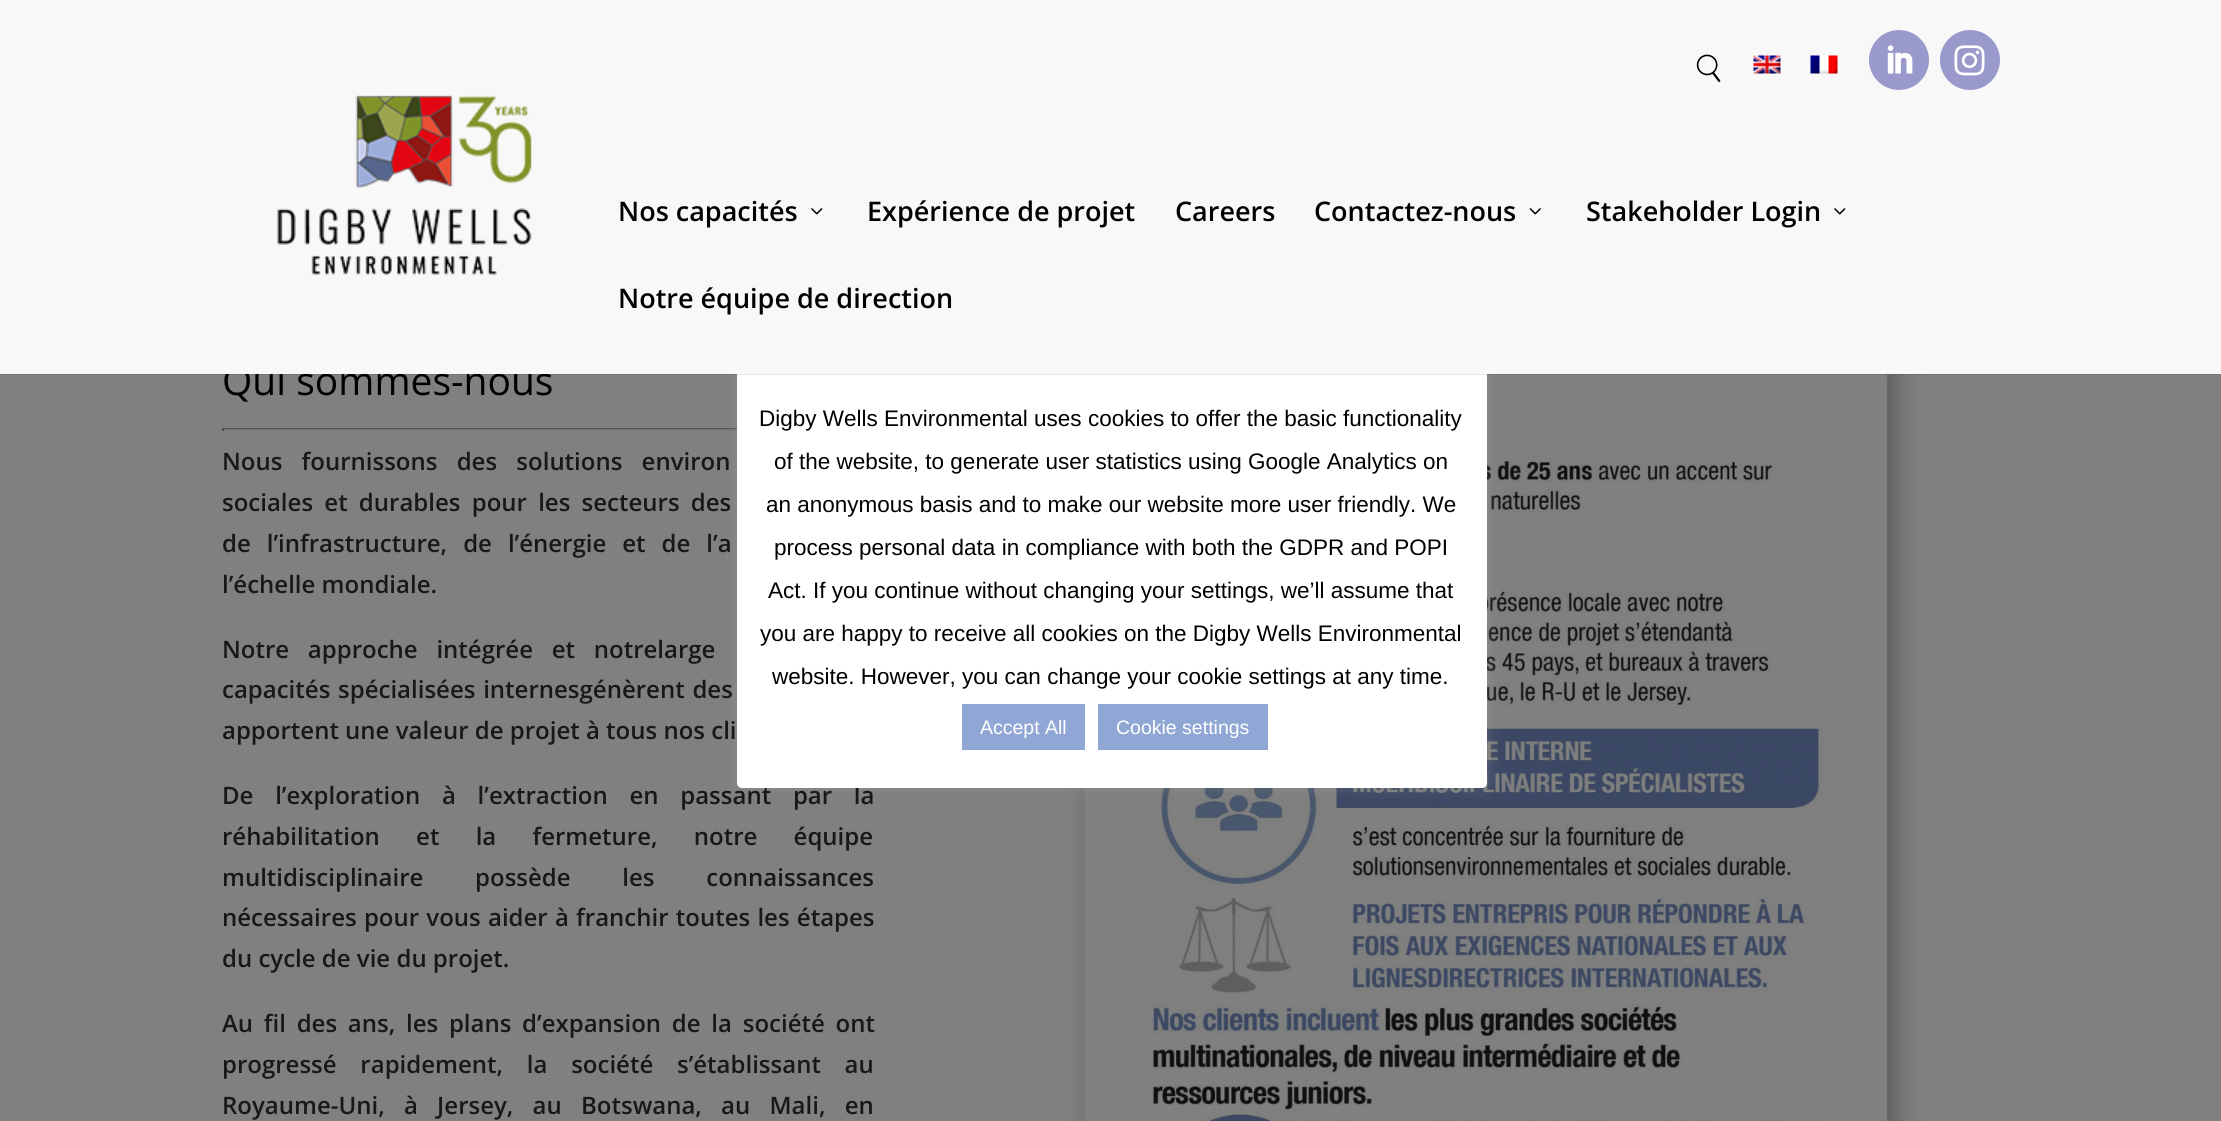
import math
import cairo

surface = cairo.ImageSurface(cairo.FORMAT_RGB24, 2221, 1121)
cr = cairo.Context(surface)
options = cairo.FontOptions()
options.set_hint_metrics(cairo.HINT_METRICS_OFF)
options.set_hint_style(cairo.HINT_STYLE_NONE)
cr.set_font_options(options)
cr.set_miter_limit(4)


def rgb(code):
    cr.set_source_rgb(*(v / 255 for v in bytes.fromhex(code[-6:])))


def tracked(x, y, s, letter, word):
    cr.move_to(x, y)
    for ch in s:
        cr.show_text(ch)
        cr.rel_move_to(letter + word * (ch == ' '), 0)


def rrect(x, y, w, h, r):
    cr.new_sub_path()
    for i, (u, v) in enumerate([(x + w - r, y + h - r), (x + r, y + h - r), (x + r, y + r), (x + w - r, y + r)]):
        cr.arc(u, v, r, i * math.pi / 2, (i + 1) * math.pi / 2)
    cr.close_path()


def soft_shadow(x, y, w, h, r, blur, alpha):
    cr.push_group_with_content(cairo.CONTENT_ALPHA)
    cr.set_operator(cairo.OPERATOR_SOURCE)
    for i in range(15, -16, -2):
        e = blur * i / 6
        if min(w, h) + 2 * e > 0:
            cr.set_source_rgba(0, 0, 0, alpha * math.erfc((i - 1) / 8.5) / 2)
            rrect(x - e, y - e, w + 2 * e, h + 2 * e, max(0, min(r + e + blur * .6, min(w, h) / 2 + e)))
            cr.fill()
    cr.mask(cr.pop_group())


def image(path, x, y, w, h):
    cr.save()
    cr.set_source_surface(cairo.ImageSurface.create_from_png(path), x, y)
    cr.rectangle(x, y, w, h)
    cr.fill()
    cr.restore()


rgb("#808080")
cr.paint()
for x, y, w, h, color in [
    (222, 428, 515, 1, "#505050"),
    (222, 429, 515, 2, "#777777"),
    (222, 428, 2, 3, "#505050"),
]:
    rgb(color)
    cr.rectangle(x, y, w, h)
    cr.fill()
rgb("#000000")
soft_shadow(1094, 371, 802, 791, 0, 13.5, 0.3)
image("img/9.png", 1084, 374, 804, 747)
rgb("#acabab")
soft_shadow(737, 318, 750, 468, 5, 7.5, 0.3)
cr.select_font_face("Open Sans")
cr.set_font_size(39)
rgb("#000000")
cr.move_to(222, 395)
cr.show_text("Qui sommes-nous")
cr.select_font_face("Open Sans SemiBold")
cr.set_font_size(24)
rgb("#181818")
tracked(222, 470, "Nous fournissons des solutions environ", 0, 13)
tracked(222, 511, "sociales et durables pour les secteurs des", 0, 5)
tracked(222, 552, "de l’infrastructure, de l’énergie et de l’a", 0, 9.75)
cr.move_to(222, 593)
cr.show_text("l’échelle mondiale.")
tracked(222, 658, "Notre approche intégrée et notrelarge", 0, 12.5)
tracked(222, 698, "capacités spécialisées internesgénèrent des", 0, 1.5)
cr.move_to(222, 739)
cr.show_text("apportent une valeur de projet à tous nos cli")
tracked(222, 804, "De l’exploration à l’extraction en passant par la", 0, 15.5)
tracked(222, 845, "réhabilitation et la fermeture, notre équipe", 0, 30)
tracked(222, 886, "multidisciplinaire possède les connaissances", 0, 45.5)
tracked(222, 926, "nécessaires pour vous aider à franchir toutes les étapes", 0, 1)
cr.move_to(222, 967)
cr.show_text("du cycle de vie du projet.")
tracked(222, 1032, "Au fil des ans, les plans d’expansion de la société ont", 0, 4.5)
tracked(222, 1073, "progressé rapidement, la société s’établissant au", 0, 17.5)
tracked(222, 1114, "Royaume-Uni, à Jersey, au Botswana, au Mali, en", 0, 13)
rgb("#ffffff")
rrect(737, 320, 750, 468, 5)
cr.fill()
rgb("#f8f8f8")
cr.rectangle(0, 0, 2221, 374)
cr.fill()
image("img/4.png", 1810, 55, 28, 19)
image("img/3.png", 1753, 55, 28, 19)
cr.set_font_size(27)
rgb("#000000")
cr.move_to(618, 308)
cr.show_text("Notre équipe de direction")
image("img/7.png", 1834, 208, 12, 7)
cr.move_to(1586, 221)
cr.show_text("Stakeholder Login")
image("img/8.png", 1529, 208, 12, 7)
for x, y, s in [
    (1314, 221, "Contactez-nous"),
    (1175, 221, "Careers"),
    (867, 221, "Expérience de projet"),
]:
    cr.move_to(x, y)
    cr.show_text(s)
image("img/7.png", 811, 208, 12, 7)
cr.move_to(618, 221)
cr.show_text("Nos capacités")
rgb("#9999cc")
cr.new_path()
cr.arc(1970, 60, 30, 0, 2 * math.pi)
cr.fill()
image("img/6.png", 1954, 45, 31, 31)
cr.arc(1899, 60, 30, 0, 2 * math.pi)
cr.fill()
image("img/5.png", 1887, 45, 26, 29)
image("img/2.png", 1696, 54, 25, 28)
image("img/1.png", 277, 95, 255, 180)
cr.set_source_rgba(0, 0, 0, 0.1)
cr.new_path()
cr.move_to(0, 374)
cr.line_to(0, 375)
cr.line_to(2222, 375)
cr.line_to(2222, 2)
cr.line_to(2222, 374)
cr.close_path()
cr.fill()
cr.select_font_face("Liberation Sans")
cr.set_font_size(22.5)
rgb("#000000")
for x, y, s in [
    (759, 426, "Digby Wells Environmental uses cookies to offer the basic functionality"),
    (774, 469, "of the website, to generate user statistics using Google Analytics on"),
    (766, 512, "an anonymous basis and to make our website more user friendly. We"),
    (774, 555, "process personal data in compliance with both the GDPR and POPI"),
    (768, 598, "Act. If you continue without changing your settings, we’ll assume that"),
    (760, 641, "you are happy to receive all cookies on the Digby Wells Environmental"),
    (772, 684, "website. However, you can change your cookie settings at any time."),
]:
    cr.move_to(x, y)
    cr.show_text(s)
rgb("#90a7d6")
cr.rectangle(962, 704, 123, 46)
cr.fill()
cr.set_font_size(19.5)
rgb("#ffffff")
cr.move_to(980, 734)
cr.show_text("Accept All")
rgb("#90a7d6")
cr.rectangle(1098, 704, 170, 46)
cr.fill()
rgb("#ffffff")
cr.move_to(1116, 734)
cr.show_text("Cookie settings")
surface.write_to_png("page.png")
